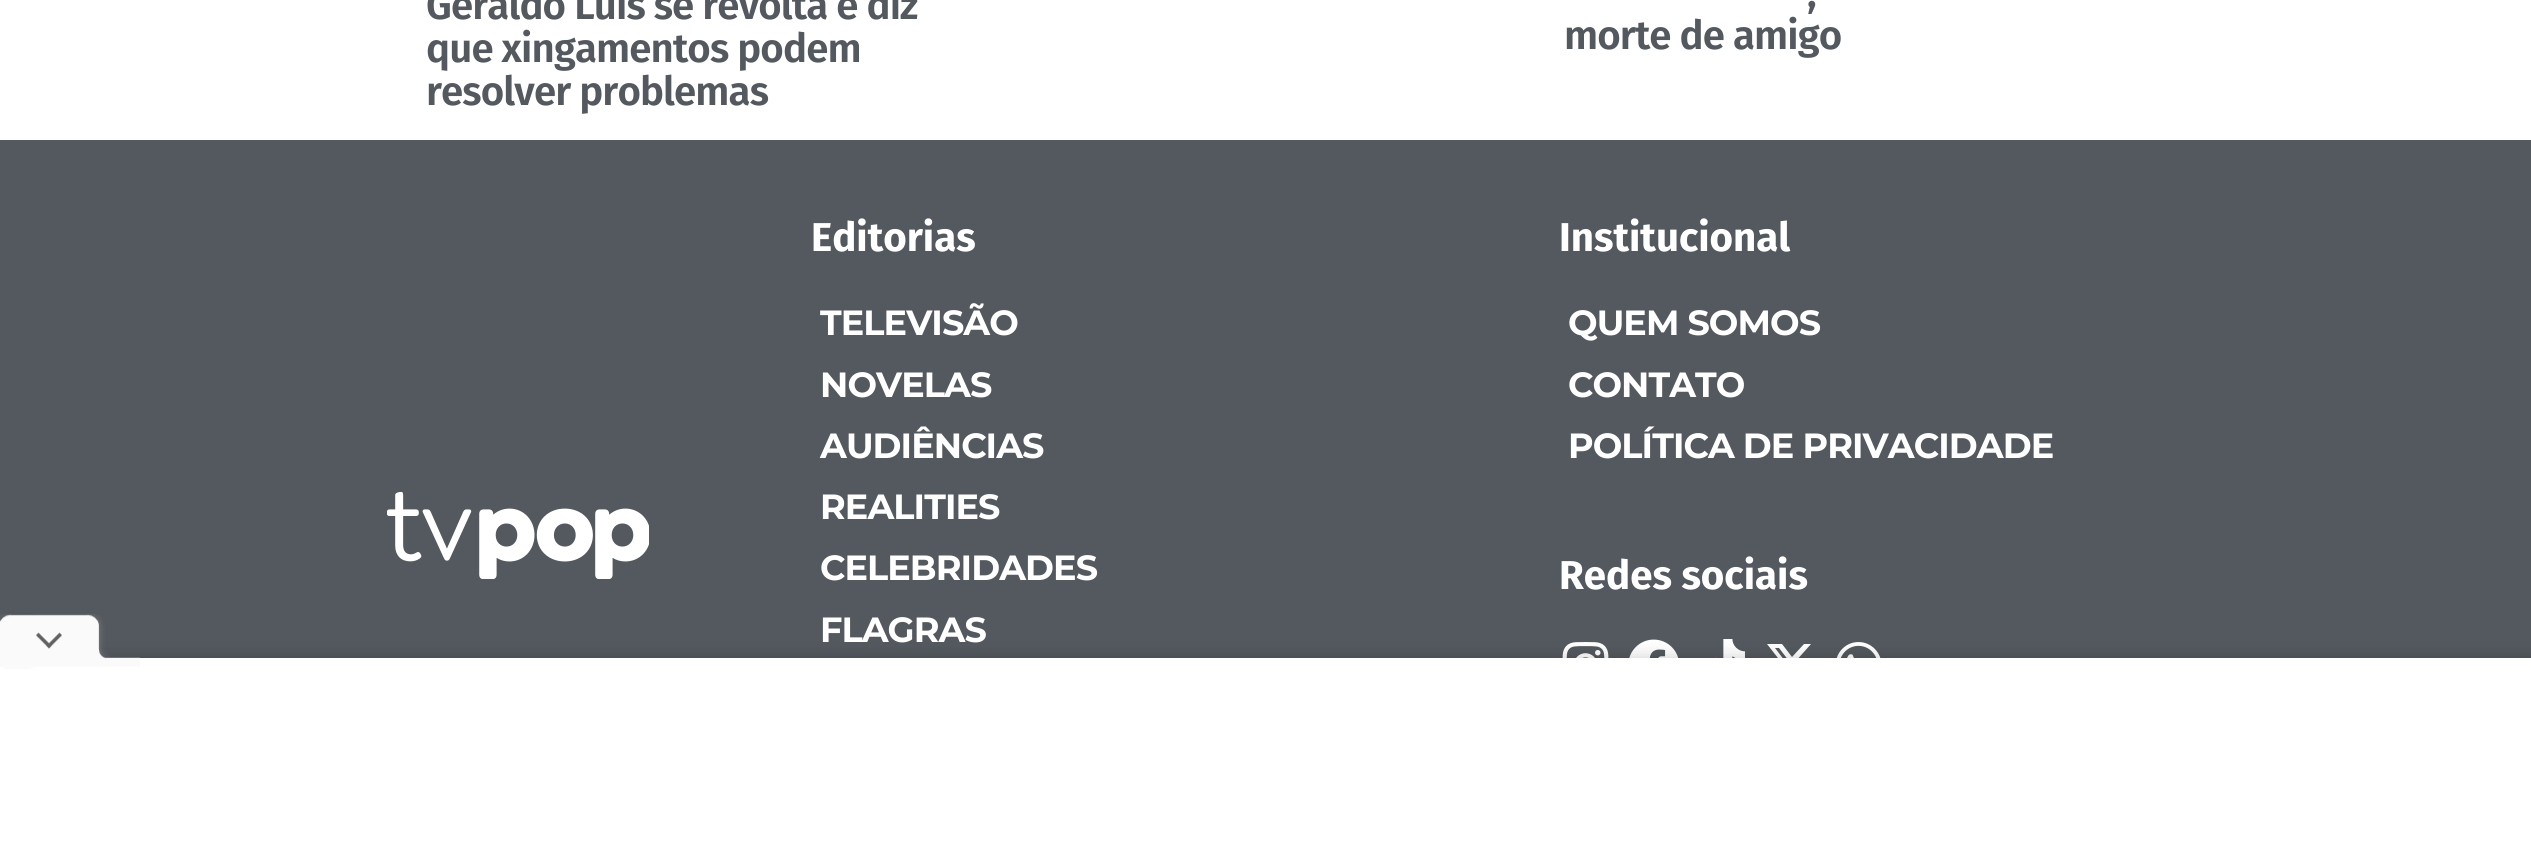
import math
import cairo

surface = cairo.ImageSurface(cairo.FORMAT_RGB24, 2531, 850)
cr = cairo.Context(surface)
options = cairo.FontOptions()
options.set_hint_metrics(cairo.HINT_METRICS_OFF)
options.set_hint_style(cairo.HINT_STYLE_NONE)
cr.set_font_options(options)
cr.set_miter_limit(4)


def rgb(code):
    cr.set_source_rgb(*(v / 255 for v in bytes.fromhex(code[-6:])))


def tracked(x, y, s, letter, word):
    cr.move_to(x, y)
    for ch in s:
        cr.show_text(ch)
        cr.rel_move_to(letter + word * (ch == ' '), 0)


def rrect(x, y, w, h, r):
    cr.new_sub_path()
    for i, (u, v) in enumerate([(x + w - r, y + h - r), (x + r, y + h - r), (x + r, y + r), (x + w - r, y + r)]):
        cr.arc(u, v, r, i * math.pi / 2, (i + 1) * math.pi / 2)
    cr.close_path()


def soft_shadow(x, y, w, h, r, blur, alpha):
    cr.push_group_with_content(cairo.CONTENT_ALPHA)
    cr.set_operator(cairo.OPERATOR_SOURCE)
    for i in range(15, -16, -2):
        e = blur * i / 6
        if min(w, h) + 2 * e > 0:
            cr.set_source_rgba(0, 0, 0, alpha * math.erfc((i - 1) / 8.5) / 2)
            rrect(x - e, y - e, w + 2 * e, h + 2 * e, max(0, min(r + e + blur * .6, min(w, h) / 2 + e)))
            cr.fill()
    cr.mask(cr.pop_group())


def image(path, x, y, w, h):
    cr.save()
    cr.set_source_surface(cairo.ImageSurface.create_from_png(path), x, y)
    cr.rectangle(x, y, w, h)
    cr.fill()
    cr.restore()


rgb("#ffffff")
cr.paint()
rgb("#54595f")
cr.rectangle(0, 140, 2531, 518)
cr.fill()
image("img/1.png", 387, 492, 262, 87)
image("img/2.png", 1562, 642, 47, 16)
image("img/3.png", 1629, 639, 50, 19)
image("img/4.png", 1715, 639, 30, 19)
rgb("#ffffff")
cr.new_path()
cr.move_to(1804, 644)
cr.line_to(1811, 644)
cr.line_to(1795, 662)
cr.line_to(1814, 686)
cr.line_to(1799, 686)
cr.line_to(1788, 671)
cr.line_to(1775, 686)
cr.line_to(1768, 686)
cr.line_to(1785, 667)
cr.line_to(1767, 644)
cr.line_to(1782, 644)
cr.line_to(1792, 657)
cr.close_path()
cr.move_to(1801, 682)
cr.line_to(1805, 682)
cr.line_to(1779, 648)
cr.line_to(1775, 648)
cr.close_path()
cr.fill()
image("img/5.png", 1836, 642, 45, 16)
rgb("#000000")
soft_shadow(0, 658, 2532, 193, 0, 9, 0.2)
rgb("#ffffff")
cr.rectangle(0, 658, 2531, 192)
cr.fill()
rgb("#000000")
soft_shadow(0, 618, 35, 45, 7, 3.5, 0.27)
rgb("#ffffff")
cr.new_path()
cr.move_to(7, 621)
cr.line_to(28, 621)
cr.curve_to(32, 621, 35, 624, 35, 628)
cr.line_to(35, 667)
cr.line_to(0, 667)
cr.line_to(0, 628)
cr.curve_to(0, 624, 3, 621, 7, 621)
cr.close_path()
cr.fill()
image("img/6.png", 0, 614, 140, 53)
cr.select_font_face("Fira Sans SemiBold")
cr.set_font_size(40.25)
rgb("#54595f")
for x, y, s in [
    (426, 19, "Geraldo Luís se revolta e diz"),
    (426, 62, "que xingamentos podem"),
    (426, 105, "resolver problemas"),
    (1807, 7, ","),
    (1564, 49, "morte de amigo"),
]:
    tracked(x, y, s, -0.9, 0)
cr.select_font_face("Fira Sans", cairo.FONT_SLANT_NORMAL, cairo.FONT_WEIGHT_BOLD)
rgb("#ffffff")
cr.move_to(811, 251)
cr.show_text("Editorias")
cr.select_font_face("Montserrat", cairo.FONT_SLANT_NORMAL, cairo.FONT_WEIGHT_BOLD)
cr.set_font_size(35)
for x, y, s in [
    (820, 335, "TELEVISÃO"),
    (820, 397, "NOVELAS"),
    (820, 458, "AUDIÊNCIAS"),
    (820, 519, "REALITIES"),
    (820, 580, "CELEBRIDADES"),
    (820, 642, "FLAGRAS"),
]:
    tracked(x, y, s, -0.9, 0)
cr.select_font_face("Fira Sans", cairo.FONT_SLANT_NORMAL, cairo.FONT_WEIGHT_BOLD)
cr.set_font_size(40.25)
cr.move_to(1559, 251)
cr.show_text("Institucional")
cr.select_font_face("Montserrat", cairo.FONT_SLANT_NORMAL, cairo.FONT_WEIGHT_BOLD)
cr.set_font_size(35)
for x, y, s in [
    (1568, 335, "QUEM SOMOS"),
    (1568, 397, "CONTATO"),
    (1568, 458, "POLÍTICA DE PRIVACIDADE"),
]:
    tracked(x, y, s, -0.9, 0)
cr.select_font_face("Fira Sans", cairo.FONT_SLANT_NORMAL, cairo.FONT_WEIGHT_BOLD)
cr.set_font_size(40.25)
cr.move_to(1559, 589)
cr.show_text("Redes sociais")
surface.write_to_png("page.png")
